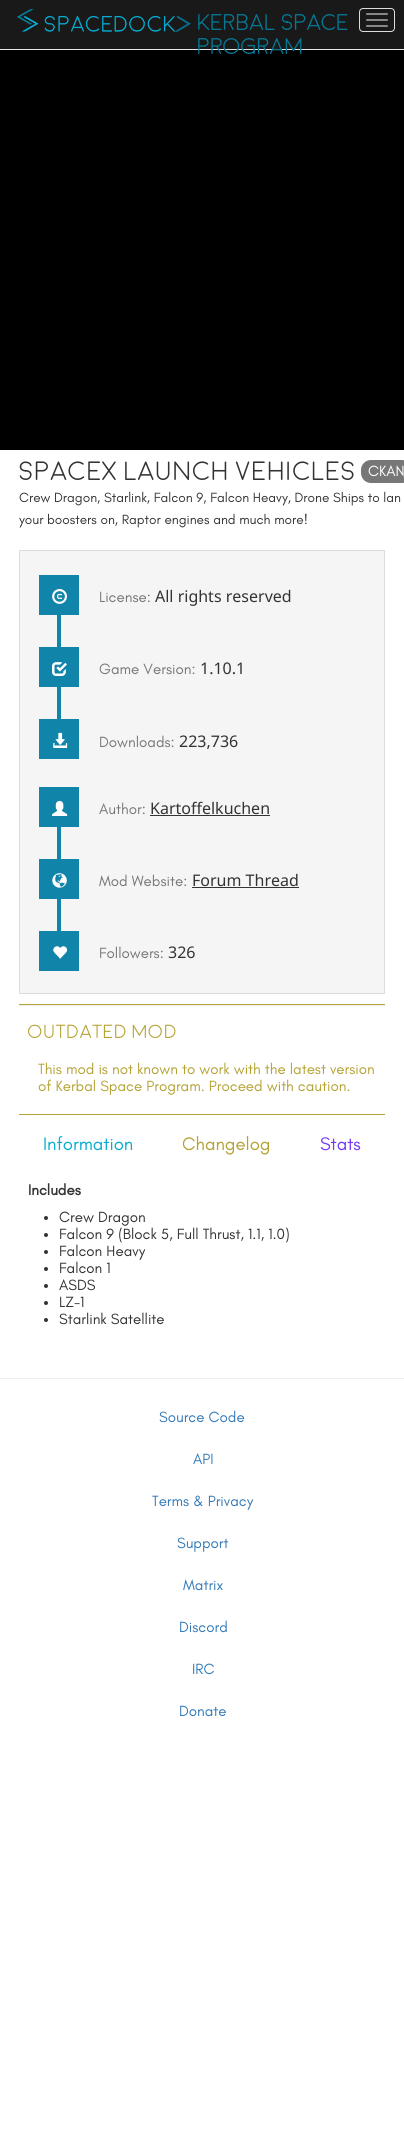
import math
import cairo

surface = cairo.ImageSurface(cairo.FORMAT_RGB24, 404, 2150)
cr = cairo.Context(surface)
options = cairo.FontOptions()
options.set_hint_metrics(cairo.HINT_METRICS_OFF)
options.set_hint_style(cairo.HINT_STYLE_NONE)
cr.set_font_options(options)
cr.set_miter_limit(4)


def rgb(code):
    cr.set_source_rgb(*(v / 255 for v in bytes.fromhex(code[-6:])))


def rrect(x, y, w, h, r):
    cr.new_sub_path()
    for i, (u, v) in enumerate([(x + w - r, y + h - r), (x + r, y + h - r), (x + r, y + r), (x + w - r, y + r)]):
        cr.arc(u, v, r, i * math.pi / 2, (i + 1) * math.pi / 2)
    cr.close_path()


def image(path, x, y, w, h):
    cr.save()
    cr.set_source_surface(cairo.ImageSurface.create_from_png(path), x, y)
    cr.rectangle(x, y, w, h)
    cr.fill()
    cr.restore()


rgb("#ffffff")
cr.paint()
rgb("#191919")
cr.rectangle(0, 0, 404, 49)
cr.fill()
rgb("#e7e7e7")
cr.rectangle(0, 49, 404, 1)
cr.fill()
image("img/1.png", 17, 9, 158, 23)
image("img/2.png", 175, 15, 16, 17)
rrect(359.5, 8.5, 35, 23, 3.5)
rgb("#dddddd")
cr.set_line_width(1)
cr.stroke()
rgb("#888888")
rrect(366, 13, 22, 2, 1)
cr.fill()
rrect(366, 19, 22, 2, 1)
cr.fill()
rrect(366, 25, 22, 2, 1)
cr.fill()
rgb("#000000")
cr.rectangle(0, 50, 404, 400)
cr.fill()
rgb("#777777")
rrect(361, 460, 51, 23, 10)
cr.fill()
rgb("#f5f5f5")
cr.rectangle(19.5, 550.5, 365, 443)
cr.fill_preserve()
rgb("#dcdcdc")
cr.stroke()
rgb("#1184aa")
cr.rectangle(39, 575, 40, 40)
cr.fill()
image("img/3.png", 52, 589, 15, 15)
cr.rectangle(57, 615, 4, 104)
cr.fill()
cr.rectangle(39, 647, 40, 40)
cr.fill()
image("img/4.png", 52, 662, 15, 14)
cr.rectangle(39, 719, 40, 40)
cr.fill()
image("img/5.png", 53, 732, 15, 16)
cr.rectangle(39, 787, 40, 40)
cr.fill()
image("img/6.png", 52, 800, 16, 16)
for x, y, w, h, color in [
    (150, 815, 120, 1, "#333333"),
    (57, 827, 4, 104, "#1184aa"),
    (39, 859, 40, 40, "#1184aa"),
]:
    rgb(color)
    cr.rectangle(x, y, w, h)
    cr.fill()
image("img/7.png", 52, 873, 15, 15)
rgb("#333333")
cr.rectangle(192, 887, 107, 1)
cr.fill()
rgb("#1184aa")
cr.rectangle(39, 931, 40, 40)
cr.fill()
image("img/8.png", 53, 946, 15, 13)
for x, y, w, h, color in [
    (19, 1005, 366, 1, "#f2f2f2"),
    (19, 1004, 366, 1, "#b4a232"),
    (19, 1114, 366, 1, "#b4a232"),
]:
    rgb(color)
    cr.rectangle(x, y, w, h)
    cr.fill()
rgb("#333333")
cr.arc(46, 1218, 2, 0, 2 * math.pi)
cr.fill()
cr.arc(46, 1235, 2, 0, 2 * math.pi)
cr.fill()
cr.arc(46, 1252, 2, 0, 2 * math.pi)
cr.fill()
cr.arc(46, 1269, 2, 0, 2 * math.pi)
cr.fill()
cr.arc(46, 1286, 2, 0, 2 * math.pi)
cr.fill()
cr.arc(46, 1303, 2, 0, 2 * math.pi)
cr.fill()
cr.arc(46, 1320, 2, 0, 2 * math.pi)
cr.fill()
rgb("#eeeeee")
cr.rectangle(0, 1378, 404, 1)
cr.fill()
cr.select_font_face("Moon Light")
cr.set_font_size(22.75)
rgb("#057893")
cr.move_to(197, 30)
cr.show_text("KERBAL SPACE")
cr.move_to(197, 54)
cr.show_text("PROGRAM")
cr.set_font_size(26.5)
rgb("#333333")
cr.move_to(19, 480)
cr.show_text("SpaceX Launch Vehicles")
cr.select_font_face("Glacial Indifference")
cr.set_font_size(15.1)
rgb("#ffffff")
cr.move_to(368, 476)
cr.show_text("CKAN")
cr.set_font_size(13.6)
rgb("#333333")
cr.move_to(19, 502)
cr.show_text("Crew Dragon, Starlink, Falcon 9, Falcon Heavy, Drone Ships to lan")
cr.move_to(19, 524)
cr.show_text("your boosters on, Raptor engines and much more!")
cr.set_font_size(15.1)
rgb("#777777")
cr.move_to(99, 602)
cr.show_text("License:")
cr.select_font_face("Noto Sans")
cr.set_font_size(16)
rgb("#333333")
cr.move_to(155, 602)
cr.show_text("All rights reserved")
cr.select_font_face("Glacial Indifference")
cr.set_font_size(15.1)
rgb("#777777")
cr.move_to(99, 674)
cr.show_text("Game Version:")
cr.select_font_face("Noto Sans")
cr.set_font_size(16)
rgb("#333333")
cr.move_to(200, 674)
cr.show_text("1.10.1")
cr.select_font_face("Glacial Indifference")
cr.set_font_size(15.1)
rgb("#777777")
cr.move_to(99, 747)
cr.show_text("Downloads:")
cr.select_font_face("Noto Sans")
cr.set_font_size(16)
rgb("#333333")
cr.move_to(179, 747)
cr.show_text("223,736")
cr.select_font_face("Glacial Indifference")
cr.set_font_size(15.1)
rgb("#777777")
cr.move_to(99, 814)
cr.show_text("Author:")
cr.select_font_face("Noto Sans")
cr.set_font_size(16)
rgb("#333333")
cr.move_to(150, 814)
cr.show_text("Kartoffelkuchen")
cr.select_font_face("Glacial Indifference")
cr.set_font_size(15.1)
rgb("#777777")
cr.move_to(99, 886)
cr.show_text("Mod Website:")
cr.select_font_face("Noto Sans")
cr.set_font_size(16)
rgb("#333333")
cr.move_to(192, 886)
cr.show_text("Forum Thread")
cr.select_font_face("Glacial Indifference")
cr.set_font_size(15.1)
rgb("#777777")
cr.move_to(99, 958)
cr.show_text("Followers:")
cr.select_font_face("Noto Sans")
cr.set_font_size(16)
rgb("#333333")
cr.move_to(168, 958)
cr.show_text("326")
cr.select_font_face("Moon Light")
cr.set_font_size(19)
rgb("#b4a232")
cr.move_to(28, 1038)
cr.show_text("Outdated Mod")
cr.select_font_face("Glacial Indifference")
cr.set_font_size(15.1)
cr.move_to(38, 1074)
cr.show_text("This mod is not known to work with the latest version")
cr.move_to(38, 1091)
cr.show_text("of Kerbal Space Program. Proceed with caution.")
cr.set_font_size(18.5)
rgb("#07acd2")
cr.move_to(43, 1150)
cr.show_text("Information")
rgb("#b4a232")
cr.move_to(182, 1150)
cr.show_text("Changelog")
rgb("#743af3")
cr.move_to(320, 1150)
cr.show_text("Stats")
cr.select_font_face("Glacial Indifference", cairo.FONT_SLANT_NORMAL, cairo.FONT_WEIGHT_BOLD)
cr.set_font_size(15.1)
rgb("#333333")
cr.move_to(28, 1195)
cr.show_text("Includes")
cr.select_font_face("Glacial Indifference")
for x, y, s in [
    (59, 1222, "Crew Dragon"),
    (59, 1239, "Falcon 9 (Block 5, Full Thrust, 1.1, 1.0)"),
    (59, 1256, "Falcon Heavy"),
    (59, 1273, "Falcon 1"),
    (59, 1290, "ASDS"),
    (59, 1307, "LZ-1"),
    (59, 1324, "Starlink Satellite"),
]:
    cr.move_to(x, y)
    cr.show_text(s)
rgb("#337ab7")
for x, y, s in [
    (159, 1422, "Source Code"),
    (193, 1464, "API"),
    (152, 1506, "Terms & Privacy"),
    (177, 1548, "Support"),
    (183, 1590, "Matrix"),
    (179, 1632, "Discord"),
    (192, 1674, "IRC"),
    (179, 1716, "Donate"),
]:
    cr.move_to(x, y)
    cr.show_text(s)
surface.write_to_png("page.png")
